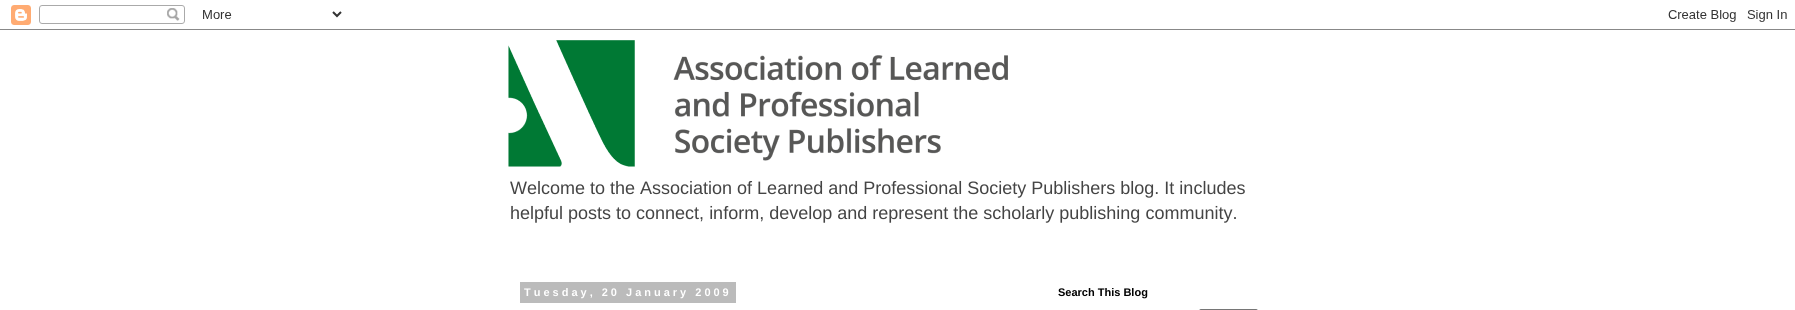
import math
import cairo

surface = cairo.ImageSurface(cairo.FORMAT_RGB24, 1795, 310)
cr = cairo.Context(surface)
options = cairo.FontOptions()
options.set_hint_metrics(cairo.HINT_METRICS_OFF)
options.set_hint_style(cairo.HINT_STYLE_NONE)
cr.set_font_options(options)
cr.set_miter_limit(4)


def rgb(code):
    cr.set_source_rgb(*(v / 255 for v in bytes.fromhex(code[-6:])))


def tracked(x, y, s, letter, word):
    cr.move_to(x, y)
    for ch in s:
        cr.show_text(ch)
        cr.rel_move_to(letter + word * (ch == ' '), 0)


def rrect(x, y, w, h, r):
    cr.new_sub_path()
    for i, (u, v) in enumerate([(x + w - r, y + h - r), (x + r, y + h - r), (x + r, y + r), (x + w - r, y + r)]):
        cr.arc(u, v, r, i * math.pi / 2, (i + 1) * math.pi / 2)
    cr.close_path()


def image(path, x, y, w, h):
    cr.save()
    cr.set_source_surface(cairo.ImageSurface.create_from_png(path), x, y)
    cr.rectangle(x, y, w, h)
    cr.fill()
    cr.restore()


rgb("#ffffff")
cr.paint()
image("img/1.png", 0, 5, 1795, 25)
image("img/2.png", 508, 40, 500, 127)
rgb("#bbbbbb")
cr.rectangle(520, 282, 216, 21)
cr.fill()
rrect(1199.5, 309.5, 58, 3, 1.5)
rgb("#767676")
cr.set_line_width(1)
cr.stroke()
cr.select_font_face("Liberation Sans")
cr.set_font_size(18)
rgb("#444444")
cr.move_to(510, 194)
cr.show_text("Welcome to the Association of Learned and Professional Society Publishers blog. It includes")
cr.move_to(510, 219)
cr.show_text("helpful posts to connect, inform, develop and represent the scholarly publishing community.")
cr.select_font_face("Liberation Sans", cairo.FONT_SLANT_NORMAL, cairo.FONT_WEIGHT_BOLD)
cr.set_font_size(11)
rgb("#ffffff")
tracked(524, 296, "Tuesday, 20 January 2009", 3, 0)
rgb("#000000")
cr.move_to(1058, 296)
cr.show_text("Search This Blog")
surface.write_to_png("page.png")
